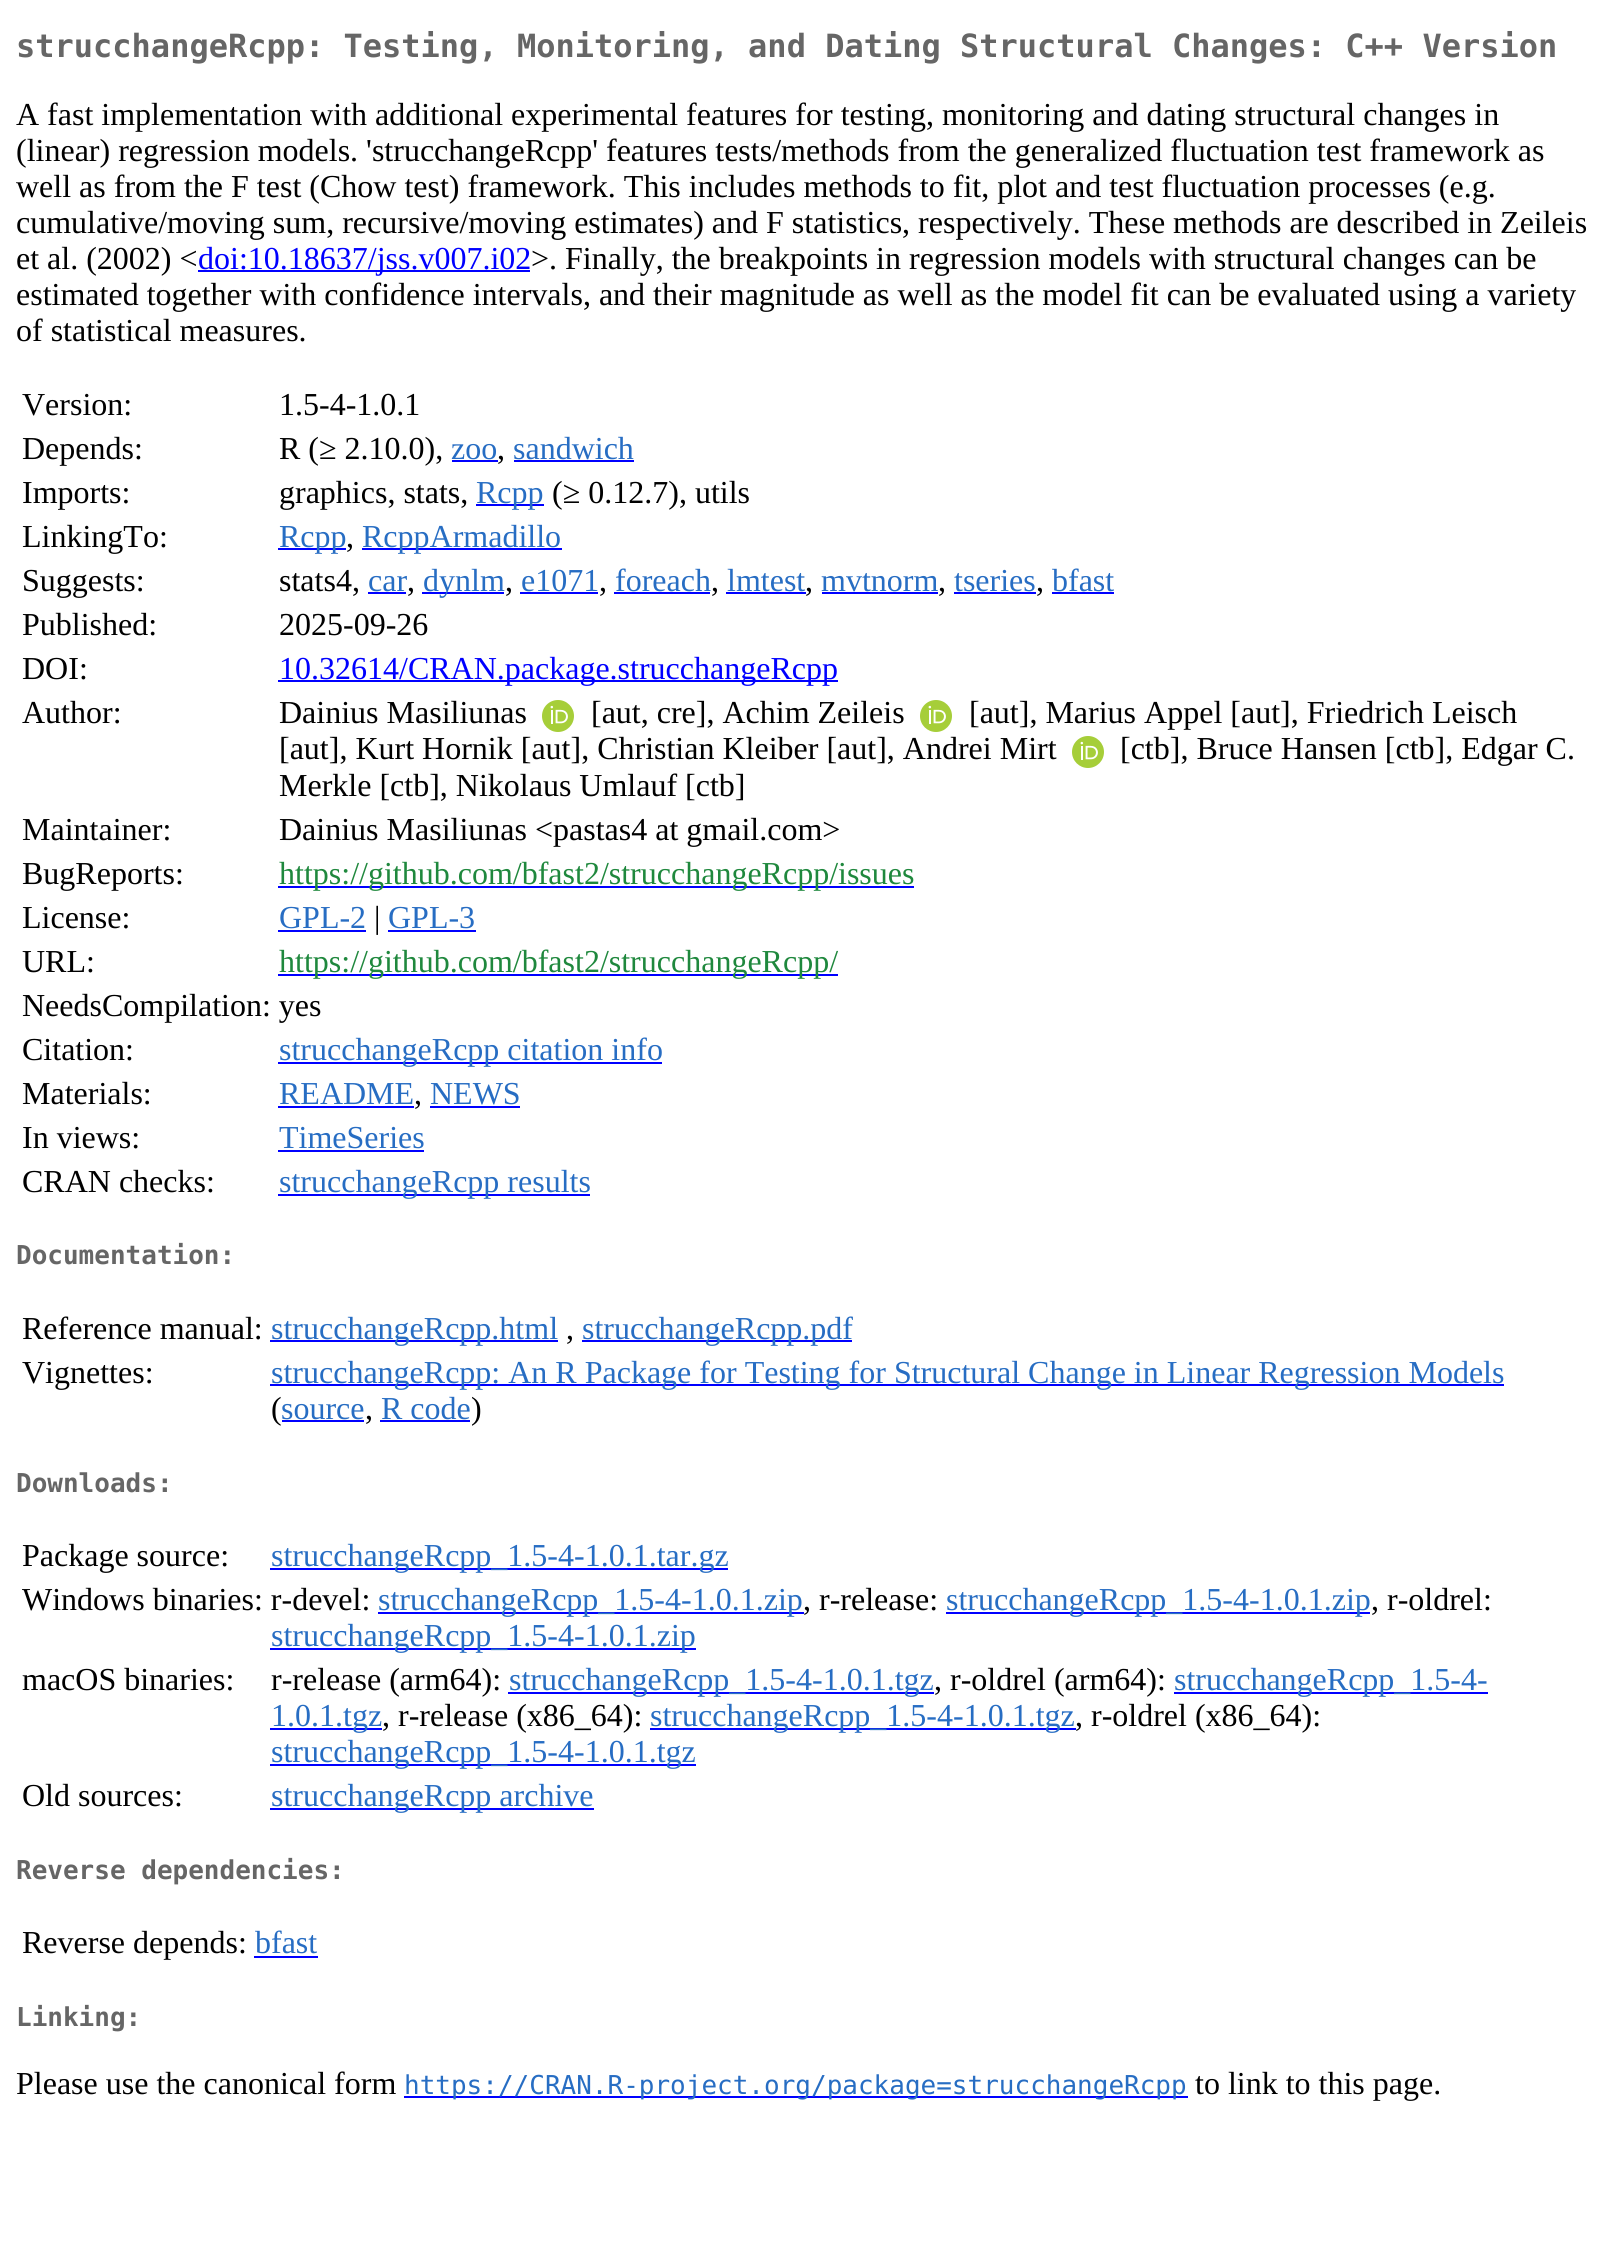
import math
import cairo

surface = cairo.ImageSurface(cairo.FORMAT_RGB24, 1611, 2267)
cr = cairo.Context(surface)
options = cairo.FontOptions()
options.set_hint_metrics(cairo.HINT_METRICS_OFF)
options.set_hint_style(cairo.HINT_STYLE_NONE)
cr.set_font_options(options)
cr.set_miter_limit(4)


def rgb(code):
    cr.set_source_rgb(*(v / 255 for v in bytes.fromhex(code[-6:])))


def image(path, x, y, w, h):
    cr.save()
    cr.set_source_surface(cairo.ImageSurface.create_from_png(path), x, y)
    cr.rectangle(x, y, w, h)
    cr.fill()
    cr.restore()


rgb("#ffffff")
cr.paint()
for x, y, w, h, color in [
    (198, 270, 332, 2, "#0000ff"),
    (452, 460, 46, 2, "#0000ff"),
    (514, 460, 120, 2, "#0000ff"),
    (476, 504, 68, 2, "#0000ff"),
    (278, 548, 68, 2, "#0000ff"),
    (362, 548, 200, 2, "#0000ff"),
    (368, 592, 38, 2, "#0000ff"),
    (422, 592, 82, 2, "#0000ff"),
    (520, 592, 78, 2, "#0000ff"),
    (614, 592, 96, 2, "#0000ff"),
    (726, 592, 80, 2, "#0000ff"),
    (822, 592, 116, 2, "#0000ff"),
    (954, 592, 82, 2, "#0000ff"),
    (1052, 592, 62, 2, "#0000ff"),
    (278, 680, 560, 2, "#0000ff"),
]:
    rgb(color)
    cr.rectangle(x, y, w, h)
    cr.fill()
image("img/1.png", 542, 700, 32, 32)
image("img/1.png", 920, 700, 32, 32)
image("img/1.png", 1072, 736, 32, 32)
for x, y, w, h, color in [
    (278, 886, 636, 2, "#0000ff"),
    (278, 930, 88, 2, "#0000ff"),
    (388, 930, 88, 2, "#0000ff"),
    (278, 974, 560, 2, "#0000ff"),
    (278, 1062, 384, 2, "#0000ff"),
    (278, 1106, 136, 2, "#0000ff"),
    (430, 1106, 90, 2, "#0000ff"),
    (278, 1150, 146, 2, "#0000ff"),
    (278, 1194, 312, 2, "#0000ff"),
    (270, 1340, 288, 2, "#0000ff"),
    (582, 1340, 270, 2, "#0000ff"),
    (270, 1384, 1234, 2, "#0000ff"),
    (282, 1420, 82, 2, "#0000ff"),
    (380, 1420, 90, 2, "#0000ff"),
    (270, 1568, 458, 2, "#0000ff"),
    (378, 1612, 426, 2, "#0000ff"),
    (946, 1612, 424, 2, "#0000ff"),
    (270, 1648, 426, 2, "#0000ff"),
    (508, 1692, 426, 2, "#0000ff"),
    (1174, 1692, 314, 2, "#0000ff"),
    (270, 1728, 112, 2, "#0000ff"),
    (650, 1728, 426, 2, "#0000ff"),
    (270, 1764, 426, 2, "#0000ff"),
    (270, 1808, 324, 2, "#0000ff"),
    (254, 1956, 64, 2, "#0000ff"),
    (404, 2096, 784, 2, "#0000ff"),
]:
    rgb(color)
    cr.rectangle(x, y, w, h)
    cr.fill()
cr.select_font_face("DejaVu Sans Mono", cairo.FONT_SLANT_NORMAL, cairo.FONT_WEIGHT_BOLD)
cr.set_font_size(32)
rgb("#666666")
cr.move_to(16, 57)
cr.show_text("strucchangeRcpp: Testing, Monitoring, and Dating Structural Changes: C++ Version")
cr.select_font_face("Liberation Serif")
rgb("#000000")
for x, y, s in [
    (16, 125, "A fast implementation with additional experimental features for testing, monitoring and dating structural changes in"),
    (16, 161, "(linear) regression models. 'strucchangeRcpp' features tests/methods from the generalized fluctuation test framework as"),
    (16, 197, "well as from the F test (Chow test) framework. This includes methods to fit, plot and test fluctuation processes (e.g."),
    (16, 233, "cumulative/moving sum, recursive/moving estimates) and F statistics, respectively. These methods are described in Zeileis"),
    (16, 269, "et al. (2002) <"),
]:
    cr.move_to(x, y)
    cr.show_text(s)
rgb("#0000ff")
cr.move_to(198, 269)
cr.show_text("doi:10.18637/jss.v007.i02")
rgb("#000000")
for x, y, s in [
    (531, 269, ">. Finally, the breakpoints in regression models with structural changes can be"),
    (16, 305, "estimated together with confidence intervals, and their magnitude as well as the model fit can be evaluated using a variety"),
    (16, 341, "of statistical measures."),
    (22, 415, "Version:"),
    (279, 415, "1.5-4-1.0.1"),
    (22, 459, "Depends:"),
    (279, 459, "R (≥ 2.10.0),"),
]:
    cr.move_to(x, y)
    cr.show_text(s)
rgb("#276dc3")
cr.move_to(451, 459)
cr.show_text("zoo")
rgb("#000000")
cr.move_to(497, 459)
cr.show_text(",")
rgb("#276dc3")
cr.move_to(513, 459)
cr.show_text("sandwich")
rgb("#000000")
cr.move_to(22, 503)
cr.show_text("Imports:")
cr.move_to(279, 503)
cr.show_text("graphics, stats,")
rgb("#276dc3")
cr.move_to(476, 503)
cr.show_text("Rcpp")
rgb("#000000")
cr.move_to(552, 503)
cr.show_text("(≥ 0.12.7), utils")
cr.move_to(22, 547)
cr.show_text("LinkingTo:")
rgb("#276dc3")
cr.move_to(279, 547)
cr.show_text("Rcpp")
rgb("#000000")
cr.move_to(346, 547)
cr.show_text(",")
rgb("#276dc3")
cr.move_to(362, 547)
cr.show_text("RcppArmadillo")
rgb("#000000")
cr.move_to(22, 591)
cr.show_text("Suggests:")
cr.move_to(279, 591)
cr.show_text("stats4,")
rgb("#276dc3")
cr.move_to(368, 591)
cr.show_text("car")
rgb("#000000")
cr.move_to(407, 591)
cr.show_text(",")
rgb("#276dc3")
cr.move_to(423, 591)
cr.show_text("dynlm")
rgb("#000000")
cr.move_to(505, 591)
cr.show_text(",")
rgb("#276dc3")
cr.move_to(521, 591)
cr.show_text("e1071")
rgb("#000000")
cr.move_to(599, 591)
cr.show_text(",")
rgb("#276dc3")
cr.move_to(615, 591)
cr.show_text("foreach")
rgb("#000000")
cr.move_to(711, 591)
cr.show_text(",")
rgb("#276dc3")
cr.move_to(727, 591)
cr.show_text("lmtest")
rgb("#000000")
cr.move_to(805, 591)
cr.show_text(",")
rgb("#276dc3")
cr.move_to(821, 591)
cr.show_text("mvtnorm")
rgb("#000000")
cr.move_to(938, 591)
cr.show_text(",")
rgb("#276dc3")
cr.move_to(954, 591)
cr.show_text("tseries")
rgb("#000000")
cr.move_to(1036, 591)
cr.show_text(",")
rgb("#276dc3")
cr.move_to(1052, 591)
cr.show_text("bfast")
rgb("#000000")
for x, y, s in [
    (22, 635, "Published:"),
    (279, 635, "2025-09-26"),
    (22, 679, "DOI:"),
]:
    cr.move_to(x, y)
    cr.show_text(s)
rgb("#0000ff")
cr.move_to(279, 679)
cr.show_text("10.32614/CRAN.package.strucchangeRcpp")
rgb("#000000")
for x, y, s in [
    (22, 723, "Author:"),
    (279, 723, "Dainius Masiliunas"),
    (591, 723, "[aut, cre], Achim Zeileis"),
    (969, 723, "[aut], Marius Appel [aut], Friedrich Leisch"),
    (279, 759, "[aut], Kurt Hornik [aut], Christian Kleiber [aut], Andrei Mirt"),
    (1120, 759, "[ctb], Bruce Hansen [ctb], Edgar C."),
    (279, 796, "Merkle [ctb], Nikolaus Umlauf [ctb]"),
    (22, 840, "Maintainer:"),
    (279, 840, "Dainius Masiliunas <pastas4 at gmail.com>"),
    (22, 884, "BugReports:"),
]:
    cr.move_to(x, y)
    cr.show_text(s)
rgb("#1f883d")
cr.move_to(279, 884)
cr.show_text("https://github.com/bfast2/strucchangeRcpp/issues")
rgb("#000000")
cr.move_to(22, 928)
cr.show_text("License:")
rgb("#276dc3")
cr.move_to(279, 928)
cr.show_text("GPL-2")
rgb("#000000")
cr.move_to(374, 928)
cr.show_text("|")
rgb("#276dc3")
cr.move_to(388, 928)
cr.show_text("GPL-3")
rgb("#000000")
cr.move_to(22, 972)
cr.show_text("URL:")
rgb("#1f883d")
cr.move_to(279, 972)
cr.show_text("https://github.com/bfast2/strucchangeRcpp/")
rgb("#000000")
cr.move_to(22, 1016)
cr.show_text("NeedsCompilation: yes")
cr.move_to(22, 1060)
cr.show_text("Citation:")
rgb("#276dc3")
cr.move_to(279, 1060)
cr.show_text("strucchangeRcpp citation info")
rgb("#000000")
cr.move_to(22, 1104)
cr.show_text("Materials:")
rgb("#276dc3")
cr.move_to(279, 1104)
cr.show_text("README")
rgb("#000000")
cr.move_to(414, 1104)
cr.show_text(",")
rgb("#276dc3")
cr.move_to(430, 1104)
cr.show_text("NEWS")
rgb("#000000")
cr.move_to(22, 1148)
cr.show_text("In views:")
rgb("#276dc3")
cr.move_to(279, 1148)
cr.show_text("TimeSeries")
rgb("#000000")
cr.move_to(22, 1192)
cr.show_text("CRAN checks:")
rgb("#276dc3")
cr.move_to(279, 1192)
cr.show_text("strucchangeRcpp results")
cr.select_font_face("DejaVu Sans Mono", cairo.FONT_SLANT_NORMAL, cairo.FONT_WEIGHT_BOLD)
cr.set_font_size(26)
rgb("#666666")
cr.move_to(16, 1264)
cr.show_text("Documentation:")
cr.select_font_face("Liberation Serif")
cr.set_font_size(32)
rgb("#000000")
cr.move_to(22, 1339)
cr.show_text("Reference manual:")
rgb("#276dc3")
cr.move_to(271, 1339)
cr.show_text("strucchangeRcpp.html")
rgb("#000000")
cr.move_to(566, 1339)
cr.show_text(",")
rgb("#276dc3")
cr.move_to(582, 1339)
cr.show_text("strucchangeRcpp.pdf")
rgb("#000000")
cr.move_to(22, 1383)
cr.show_text("Vignettes:")
rgb("#276dc3")
cr.move_to(271, 1383)
cr.show_text("strucchangeRcpp: An R Package for Testing for Structural Change in Linear Regression Models")
rgb("#000000")
cr.move_to(271, 1419)
cr.show_text("(")
rgb("#276dc3")
cr.move_to(281, 1419)
cr.show_text("source")
rgb("#000000")
cr.move_to(365, 1419)
cr.show_text(",")
rgb("#276dc3")
cr.move_to(381, 1419)
cr.show_text("R code")
rgb("#000000")
cr.move_to(471, 1419)
cr.show_text(")")
cr.select_font_face("DejaVu Sans Mono", cairo.FONT_SLANT_NORMAL, cairo.FONT_WEIGHT_BOLD)
cr.set_font_size(26)
rgb("#666666")
cr.move_to(16, 1492)
cr.show_text("Downloads:")
cr.select_font_face("Liberation Serif")
cr.set_font_size(32)
rgb("#000000")
cr.move_to(22, 1566)
cr.show_text("Package source:")
rgb("#276dc3")
cr.move_to(271, 1566)
cr.show_text("strucchangeRcpp_1.5-4-1.0.1.tar.gz")
rgb("#000000")
cr.move_to(22, 1610)
cr.show_text("Windows binaries: r-devel:")
rgb("#276dc3")
cr.move_to(378, 1610)
cr.show_text("strucchangeRcpp_1.5-4-1.0.1.zip")
rgb("#000000")
cr.move_to(803, 1610)
cr.show_text(", r-release:")
rgb("#276dc3")
cr.move_to(946, 1610)
cr.show_text("strucchangeRcpp_1.5-4-1.0.1.zip")
rgb("#000000")
cr.move_to(1371, 1610)
cr.show_text(", r-oldrel:")
rgb("#276dc3")
cr.move_to(271, 1646)
cr.show_text("strucchangeRcpp_1.5-4-1.0.1.zip")
rgb("#000000")
cr.move_to(22, 1690)
cr.show_text("macOS binaries:")
cr.move_to(271, 1690)
cr.show_text("r-release (arm64):")
rgb("#276dc3")
cr.move_to(509, 1690)
cr.show_text("strucchangeRcpp_1.5-4-1.0.1.tgz")
rgb("#000000")
cr.move_to(934, 1690)
cr.show_text(", r-oldrel (arm64):")
rgb("#276dc3")
cr.move_to(1174, 1690)
cr.show_text("strucchangeRcpp_1.5-4-")
cr.move_to(271, 1726)
cr.show_text("1.0.1.tgz")
rgb("#000000")
cr.move_to(382, 1726)
cr.show_text(", r-release (x86_64):")
rgb("#276dc3")
cr.move_to(650, 1726)
cr.show_text("strucchangeRcpp_1.5-4-1.0.1.tgz")
rgb("#000000")
cr.move_to(1075, 1726)
cr.show_text(", r-oldrel (x86_64):")
rgb("#276dc3")
cr.move_to(271, 1762)
cr.show_text("strucchangeRcpp_1.5-4-1.0.1.tgz")
rgb("#000000")
cr.move_to(22, 1806)
cr.show_text("Old sources:")
rgb("#276dc3")
cr.move_to(271, 1806)
cr.show_text("strucchangeRcpp archive")
cr.select_font_face("DejaVu Sans Mono", cairo.FONT_SLANT_NORMAL, cairo.FONT_WEIGHT_BOLD)
cr.set_font_size(26)
rgb("#666666")
cr.move_to(16, 1879)
cr.show_text("Reverse dependencies:")
cr.select_font_face("Liberation Serif")
cr.set_font_size(32)
rgb("#000000")
cr.move_to(22, 1953)
cr.show_text("Reverse depends:")
rgb("#276dc3")
cr.move_to(255, 1953)
cr.show_text("bfast")
cr.select_font_face("DejaVu Sans Mono", cairo.FONT_SLANT_NORMAL, cairo.FONT_WEIGHT_BOLD)
cr.set_font_size(26)
rgb("#666666")
cr.move_to(16, 2026)
cr.show_text("Linking:")
cr.select_font_face("Liberation Serif")
cr.set_font_size(32)
rgb("#000000")
cr.move_to(16, 2094)
cr.show_text("Please use the canonical form")
cr.select_font_face("DejaVu Sans Mono")
cr.set_font_size(26)
rgb("#276dc3")
cr.move_to(404, 2094)
cr.show_text("https://CRAN.R-project.org/package=strucchangeRcpp")
cr.select_font_face("Liberation Serif")
cr.set_font_size(32)
rgb("#000000")
cr.move_to(1195, 2094)
cr.show_text("to link to this page.")
surface.write_to_png("page.png")
